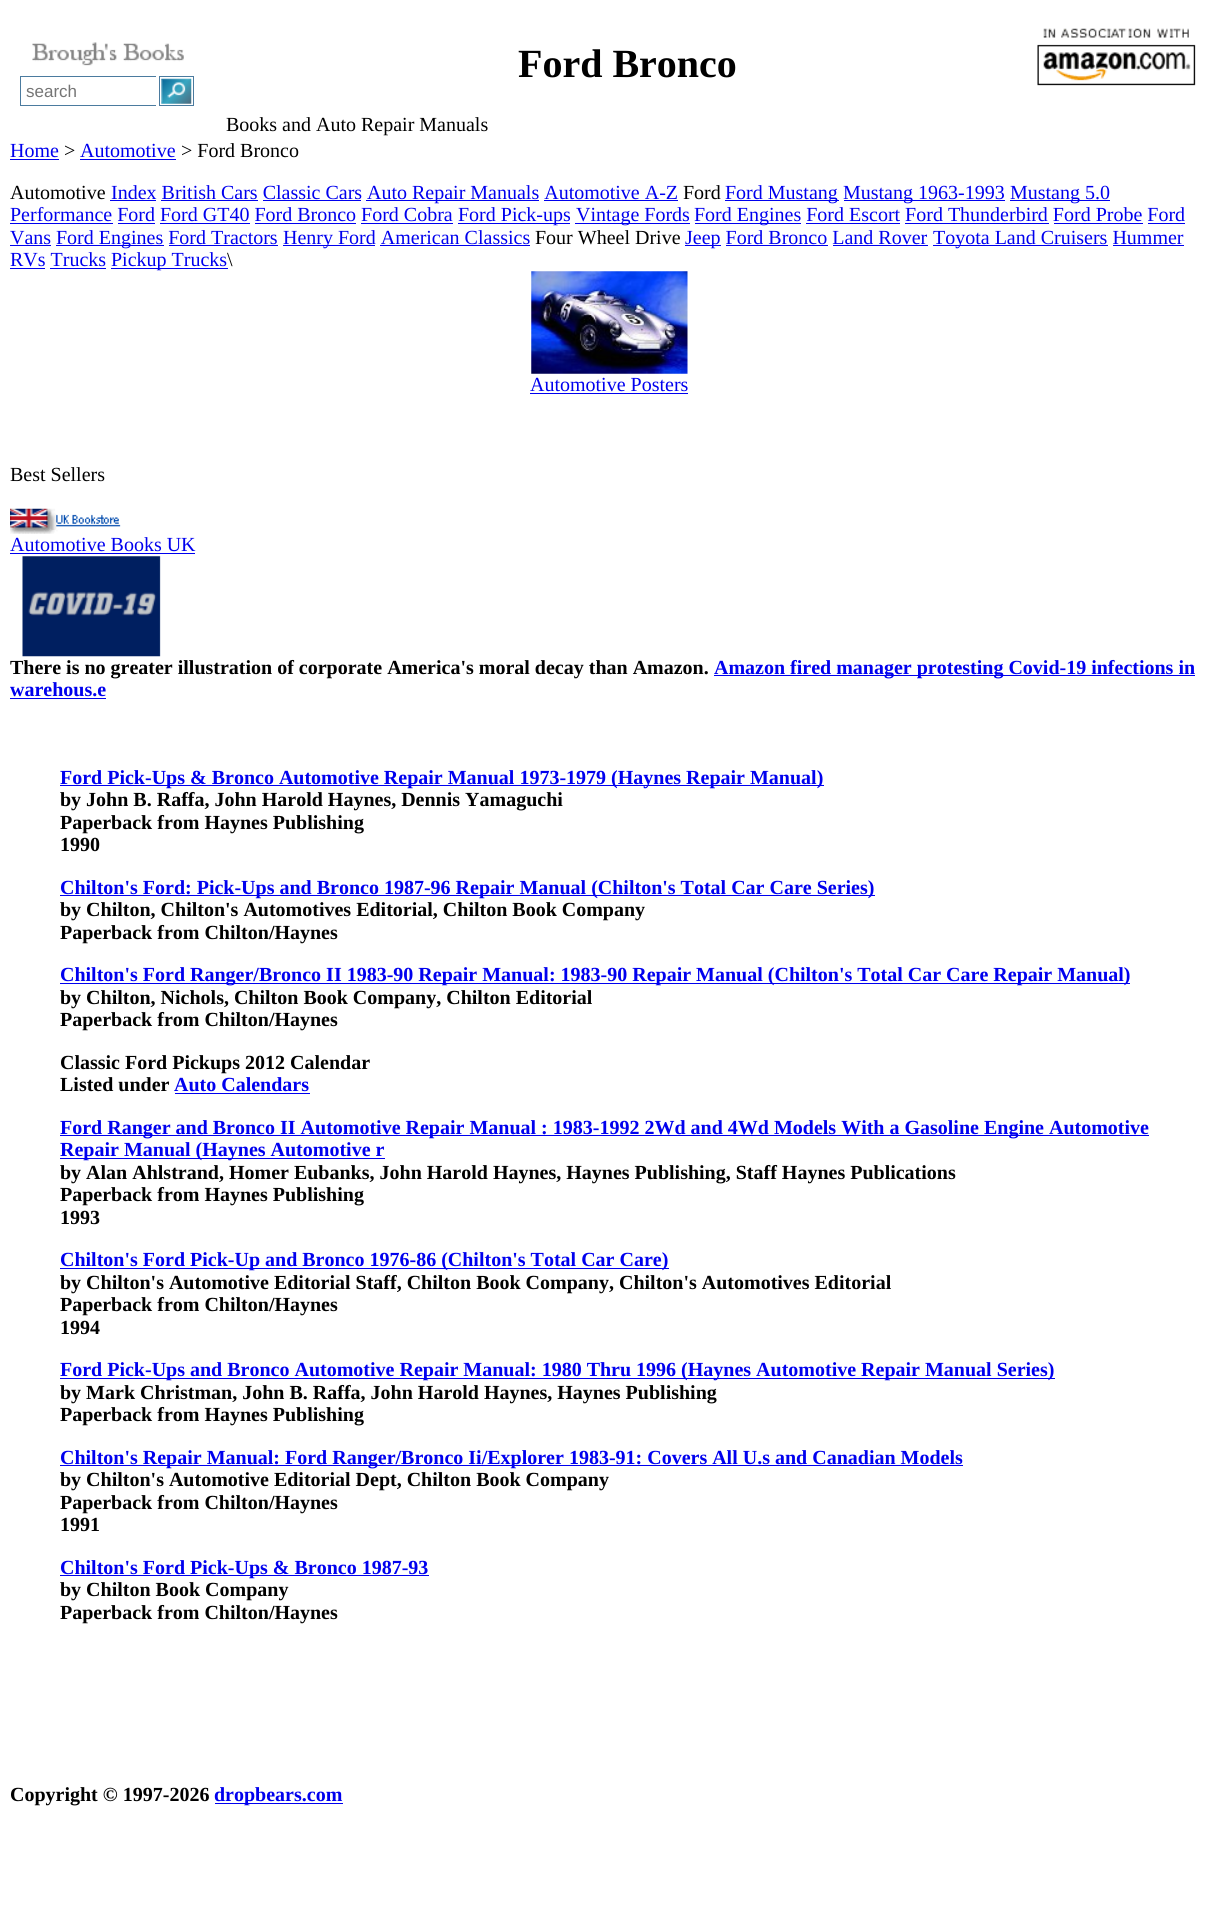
import math
import cairo

surface = cairo.ImageSurface(cairo.FORMAT_RGB24, 1217, 1914)
cr = cairo.Context(surface)
options = cairo.FontOptions()
options.set_hint_metrics(cairo.HINT_METRICS_OFF)
options.set_hint_style(cairo.HINT_STYLE_NONE)
cr.set_font_options(options)
cr.set_miter_limit(4)


def rgb(code):
    cr.set_source_rgb(*(v / 255 for v in bytes.fromhex(code[-6:])))


def image(path, x, y, w, h):
    cr.save()
    cr.set_source_surface(cairo.ImageSurface.create_from_png(path), x, y)
    cr.rectangle(x, y, w, h)
    cr.fill()
    cr.restore()


rgb("#ffffff")
cr.paint()
image("img/1.png", 32, 42, 152, 24)
for x, y, w, h, color in [
    (20, 76, 136, 1, "#4b7b9f"),
    (20, 105, 136, 1, "#4b7b9f"),
    (20, 76, 1, 30, "#4b7b9f"),
]:
    rgb(color)
    cr.rectangle(x, y, w, h)
    cr.fill()
cr.rectangle(159.5, 76.5, 34, 29)
cr.set_line_width(1)
cr.stroke()
image("img/2.png", 161, 78, 31, 26)
image("img/3.png", 1037, 28, 159, 58)
for x, y, w, h, color in [
    (10, 159, 49, 1, "#0000ee"),
    (80, 159, 96, 1, "#0000ee"),
    (110, 200, 46, 1, "#0000ee"),
    (366, 200, 173, 1, "#0000ee"),
    (725, 200, 114, 1, "#0000ee"),
    (844, 200, 161, 1, "#0000ee"),
    (1010, 200, 100, 1, "#0000ee"),
    (161, 200, 97, 1, "#0000ee"),
    (263, 200, 98, 1, "#0000ee"),
    (544, 200, 134, 1, "#0000ee"),
    (10, 223, 103, 1, "#0000ee"),
    (458, 223, 112, 1, "#0000ee"),
    (575, 223, 115, 1, "#0000ee"),
    (695, 223, 106, 1, "#0000ee"),
    (118, 223, 37, 1, "#0000ee"),
    (160, 223, 90, 1, "#0000ee"),
    (255, 223, 101, 1, "#0000ee"),
    (361, 223, 92, 1, "#0000ee"),
    (806, 223, 94, 1, "#0000ee"),
    (905, 223, 144, 1, "#0000ee"),
    (1054, 223, 89, 1, "#0000ee"),
    (1148, 223, 37, 1, "#0000ee"),
    (10, 245, 41, 1, "#0000ee"),
    (56, 245, 108, 1, "#0000ee"),
    (283, 245, 92, 1, "#0000ee"),
    (685, 245, 36, 1, "#0000ee"),
    (933, 245, 175, 1, "#0000ee"),
    (169, 245, 109, 1, "#0000ee"),
    (380, 245, 150, 1, "#0000ee"),
    (726, 245, 102, 1, "#0000ee"),
    (833, 245, 95, 1, "#0000ee"),
    (1113, 245, 71, 1, "#0000ee"),
    (10, 268, 35, 1, "#0000ee"),
    (111, 268, 117, 1, "#0000ee"),
    (50, 268, 56, 1, "#0000ee"),
]:
    rgb(color)
    cr.rectangle(x, y, w, h)
    cr.fill()
image("img/4.png", 531, 271, 157, 103)
cr.rectangle(530, 393, 158, 1)
cr.fill()
image("img/5.png", 10, 508, 111, 26)
cr.rectangle(10, 553, 185, 1)
cr.fill()
image("img/6.png", 22, 556, 139, 101)
for x, y, w, h, color in [
    (714, 675, 481, 1, "#0000ee"),
    (10, 698, 96, 1, "#0000ee"),
    (60, 785, 764, 1, "#0000ee"),
    (60, 895, 815, 1, "#0000ee"),
    (60, 983, 1070, 1, "#0000ee"),
    (175, 1093, 135, 1, "#0000ee"),
    (60, 1135, 1089, 1, "#0000ee"),
    (60, 1158, 325, 1, "#0000ee"),
    (60, 1268, 609, 1, "#0000ee"),
    (60, 1378, 995, 1, "#0000ee"),
    (60, 1465, 903, 1, "#0000ee"),
    (60, 1575, 369, 1, "#0000ee"),
    (215, 1803, 128, 1, "#0000ee"),
]:
    rgb(color)
    cr.rectangle(x, y, w, h)
    cr.fill()
cr.select_font_face("Liberation Sans")
cr.set_font_size(17)
rgb("#757575")
cr.move_to(26, 97)
cr.show_text("search")
cr.select_font_face("Liberation Serif", cairo.FONT_SLANT_NORMAL, cairo.FONT_WEIGHT_BOLD)
cr.set_font_size(40)
rgb("#000000")
cr.move_to(518, 77)
cr.show_text("Ford Bronco")
cr.select_font_face("Liberation Serif")
cr.set_font_size(20)
cr.move_to(226, 131)
cr.show_text("Books and Auto Repair Manuals")
rgb("#0000ee")
cr.move_to(10, 157)
cr.show_text("Home")
rgb("#000000")
cr.move_to(64, 157)
cr.show_text(">")
rgb("#0000ee")
cr.move_to(80, 157)
cr.show_text("Automotive")
rgb("#000000")
cr.move_to(181, 157)
cr.show_text("> Ford Bronco")
cr.move_to(10, 199)
cr.show_text("Automotive")
rgb("#0000ee")
cr.move_to(111, 199)
cr.show_text("Index British Cars Classic Cars")
cr.move_to(367, 199)
cr.show_text("Auto Repair Manuals Automotive A-Z")
rgb("#000000")
cr.move_to(683, 199)
cr.show_text("Ford")
rgb("#0000ee")
for x, y, s in [
    (725, 199, "Ford Mustang"),
    (843, 199, "Mustang 1963-1993"),
    (1010, 199, "Mustang 5.0"),
    (10, 221, "Performance Ford Ford GT40 Ford Bronco Ford Cobra"),
    (458, 221, "Ford Pick-ups"),
    (576, 221, "Vintage Fords"),
    (694, 221, "Ford Engines Ford Escort Ford Thunderbird Ford Probe Ford"),
    (10, 244, "Vans"),
    (56, 244, "Ford Engines Ford Tractors"),
    (283, 244, "Henry Ford American Classics"),
]:
    cr.move_to(x, y)
    cr.show_text(s)
rgb("#000000")
cr.move_to(535, 244)
cr.show_text("Four Wheel Drive")
rgb("#0000ee")
for x, y, s in [
    (685, 244, "Jeep Ford Bronco Land Rover"),
    (933, 244, "Toyota Land Cruisers Hummer"),
    (10, 266, "RVs Trucks"),
    (111, 266, "Pickup Trucks"),
]:
    cr.move_to(x, y)
    cr.show_text(s)
rgb("#000000")
cr.move_to(227, 266)
cr.show_text("\\")
rgb("#0000ee")
cr.move_to(530, 391)
cr.show_text("Automotive Posters")
rgb("#000000")
cr.move_to(10, 481)
cr.show_text("Best Sellers")
rgb("#0000ee")
cr.move_to(10, 551)
cr.show_text("Automotive Books UK")
cr.select_font_face("Liberation Serif", cairo.FONT_SLANT_NORMAL, cairo.FONT_WEIGHT_BOLD)
rgb("#000000")
cr.move_to(10, 674)
cr.show_text("There is no greater illustration of corporate America's moral decay than Amazon.")
rgb("#0000ee")
for x, y, s in [
    (714, 674, "Amazon fired manager protesting Covid-19 infections in"),
    (10, 696, "warehous.e"),
    (60, 784, "Ford Pick-Ups & Bronco Automotive Repair Manual 1973-1979 (Haynes Repair Manual)"),
]:
    cr.move_to(x, y)
    cr.show_text(s)
rgb("#000000")
for x, y, s in [
    (60, 806, "by John B. Raffa, John Harold Haynes, Dennis Yamaguchi"),
    (60, 829, "Paperback from Haynes Publishing"),
    (60, 851, "1990"),
]:
    cr.move_to(x, y)
    cr.show_text(s)
rgb("#0000ee")
cr.move_to(60, 894)
cr.show_text("Chilton's Ford: Pick-Ups and Bronco 1987-96 Repair Manual (Chilton's Total Car Care Series)")
rgb("#000000")
cr.move_to(60, 916)
cr.show_text("by Chilton, Chilton's Automotives Editorial, Chilton Book Company")
cr.move_to(60, 939)
cr.show_text("Paperback from Chilton/Haynes")
rgb("#0000ee")
cr.move_to(60, 981)
cr.show_text("Chilton's Ford Ranger/Bronco II 1983-90 Repair Manual: 1983-90 Repair Manual (Chilton's Total Car Care Repair Manual)")
rgb("#000000")
for x, y, s in [
    (60, 1004, "by Chilton, Nichols, Chilton Book Company, Chilton Editorial"),
    (60, 1026, "Paperback from Chilton/Haynes"),
    (60, 1069, "Classic Ford Pickups 2012 Calendar"),
    (60, 1091, "Listed under"),
]:
    cr.move_to(x, y)
    cr.show_text(s)
rgb("#0000ee")
for x, y, s in [
    (174, 1091, "Auto Calendars"),
    (60, 1134, "Ford Ranger and Bronco II Automotive Repair Manual : 1983-1992 2Wd and 4Wd Models With a Gasoline Engine Automotive"),
    (60, 1156, "Repair Manual (Haynes Automotive r"),
]:
    cr.move_to(x, y)
    cr.show_text(s)
rgb("#000000")
for x, y, s in [
    (60, 1179, "by Alan Ahlstrand, Homer Eubanks, John Harold Haynes, Haynes Publishing, Staff Haynes Publications"),
    (60, 1201, "Paperback from Haynes Publishing"),
    (60, 1224, "1993"),
]:
    cr.move_to(x, y)
    cr.show_text(s)
rgb("#0000ee")
cr.move_to(60, 1266)
cr.show_text("Chilton's Ford Pick-Up and Bronco 1976-86 (Chilton's Total Car Care)")
rgb("#000000")
for x, y, s in [
    (60, 1289, "by Chilton's Automotive Editorial Staff, Chilton Book Company, Chilton's Automotives Editorial"),
    (60, 1311, "Paperback from Chilton/Haynes"),
    (60, 1334, "1994"),
]:
    cr.move_to(x, y)
    cr.show_text(s)
rgb("#0000ee")
cr.move_to(60, 1376)
cr.show_text("Ford Pick-Ups and Bronco Automotive Repair Manual: 1980 Thru 1996 (Haynes Automotive Repair Manual Series)")
rgb("#000000")
cr.move_to(60, 1399)
cr.show_text("by Mark Christman, John B. Raffa, John Harold Haynes, Haynes Publishing")
cr.move_to(60, 1421)
cr.show_text("Paperback from Haynes Publishing")
rgb("#0000ee")
cr.move_to(60, 1464)
cr.show_text("Chilton's Repair Manual: Ford Ranger/Bronco Ii/Explorer 1983-91: Covers All U.s and Canadian Models")
rgb("#000000")
for x, y, s in [
    (60, 1486, "by Chilton's Automotive Editorial Dept, Chilton Book Company"),
    (60, 1509, "Paperback from Chilton/Haynes"),
    (60, 1531, "1991"),
]:
    cr.move_to(x, y)
    cr.show_text(s)
rgb("#0000ee")
cr.move_to(60, 1574)
cr.show_text("Chilton's Ford Pick-Ups & Bronco 1987-93")
rgb("#000000")
for x, y, s in [
    (60, 1596, "by Chilton Book Company"),
    (60, 1619, "Paperback from Chilton/Haynes"),
    (10, 1801, "Copyright © 1997-2026"),
]:
    cr.move_to(x, y)
    cr.show_text(s)
rgb("#0000ee")
cr.move_to(214, 1801)
cr.show_text("dropbears.com")
surface.write_to_png("page.png")
